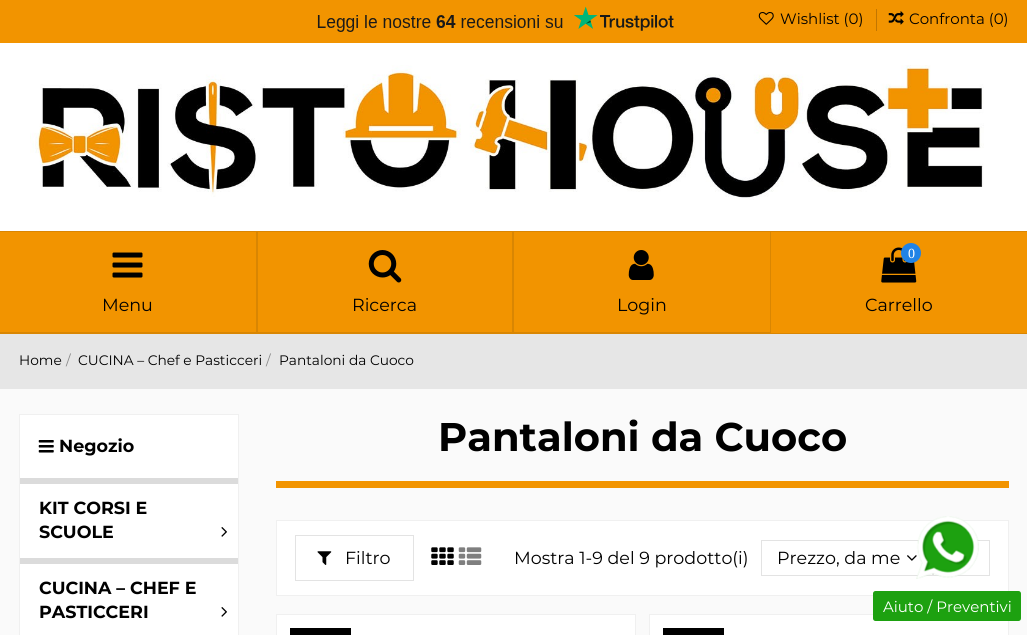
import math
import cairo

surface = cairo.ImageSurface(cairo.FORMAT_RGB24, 1027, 635)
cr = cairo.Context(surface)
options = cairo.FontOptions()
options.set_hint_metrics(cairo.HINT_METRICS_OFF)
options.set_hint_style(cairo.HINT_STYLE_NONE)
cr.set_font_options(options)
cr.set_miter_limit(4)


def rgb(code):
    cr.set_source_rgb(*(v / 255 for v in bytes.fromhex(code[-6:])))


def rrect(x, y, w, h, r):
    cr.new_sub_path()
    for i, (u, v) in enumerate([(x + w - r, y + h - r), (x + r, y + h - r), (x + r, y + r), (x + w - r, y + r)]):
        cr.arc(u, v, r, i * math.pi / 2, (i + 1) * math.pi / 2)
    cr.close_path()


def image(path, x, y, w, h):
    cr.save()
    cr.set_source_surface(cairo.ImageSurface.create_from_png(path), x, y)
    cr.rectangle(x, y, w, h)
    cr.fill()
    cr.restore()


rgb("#fafafa")
cr.paint()
rgb("#ffffff")
cr.rectangle(0, 43, 1027, 188)
cr.fill()
rgb("#f29400")
cr.rectangle(0, 0, 1027, 43)
cr.fill()
image("img/1.png", 317, 6, 357, 26)
image("img/2.png", 758, 12, 16, 13)
rgb("#c27600")
cr.rectangle(876, 9, 1, 22)
cr.fill()
image("img/3.png", 888, 11, 16, 14)
image("img/4.png", 30, 65, 954, 135)
rgb("#f29400")
cr.rectangle(0, 231, 1027, 103)
cr.fill()
rgb("#da8602")
cr.new_path()
cr.move_to(0, 231)
cr.line_to(258, 231)
cr.line_to(256, 232)
cr.line_to(0, 232)
cr.close_path()
cr.fill()
cr.set_source_rgba(0.082, 0.082, 0.082, 0.11)
cr.new_path()
cr.move_to(258, 231)
cr.line_to(258, 334)
cr.line_to(256, 332)
cr.line_to(256, 232)
cr.close_path()
cr.fill()
cr.new_path()
cr.move_to(258, 334)
cr.line_to(0, 334)
cr.line_to(0, 332)
cr.line_to(256, 332)
cr.close_path()
cr.fill()
image("img/5.png", 112, 252, 31, 26)
rgb("#da8602")
cr.new_path()
cr.move_to(258, 231)
cr.line_to(514, 231)
cr.line_to(512, 232)
cr.line_to(258, 232)
cr.close_path()
cr.fill()
cr.set_source_rgba(0.082, 0.082, 0.082, 0.11)
cr.new_path()
cr.move_to(514, 231)
cr.line_to(514, 334)
cr.line_to(512, 332)
cr.line_to(512, 232)
cr.close_path()
cr.fill()
cr.new_path()
cr.move_to(514, 334)
cr.line_to(258, 334)
cr.line_to(258, 332)
cr.line_to(512, 332)
cr.close_path()
cr.fill()
image("img/6.png", 368, 250, 34, 33)
rgb("#da8602")
cr.new_path()
cr.move_to(514, 231)
cr.line_to(771, 231)
cr.line_to(770, 232)
cr.line_to(514, 232)
cr.close_path()
cr.fill()
cr.set_source_rgba(0.082, 0.082, 0.082, 0.11)
cr.new_path()
cr.move_to(771, 231)
cr.line_to(771, 334)
cr.line_to(770, 332)
cr.line_to(770, 232)
cr.close_path()
cr.fill()
cr.new_path()
cr.move_to(771, 334)
cr.line_to(514, 334)
cr.line_to(514, 332)
cr.line_to(770, 332)
cr.close_path()
cr.fill()
image("img/7.png", 628, 250, 26, 30)
rgb("#da8602")
cr.rectangle(771, 231, 256, 1)
cr.fill()
cr.rectangle(771, 333, 256, 1)
cr.fill()
image("img/8.png", 881, 247, 36, 36)
rgb("#2183e6")
cr.arc(911, 253, 10, 0, 2 * math.pi)
cr.fill()
rgb("#e6e6e6")
cr.rectangle(0, 334, 1027, 55)
cr.fill()
rgb("#ffffff")
cr.rectangle(19.5, 414.5, 219, 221)
cr.fill_preserve()
rgb("#f0f0f0")
cr.set_line_width(1)
cr.stroke()
image("img/9.png", 38, 440, 16, 13)
rgb("#dbdbdb")
cr.rectangle(20, 478, 218, 6)
cr.fill()
image("img/10.png", 221, 527, 6, 10)
cr.rectangle(20, 558, 218, 6)
cr.fill()
image("img/10.png", 221, 607, 6, 10)
rgb("#f29400")
cr.rectangle(276, 481, 733, 7)
cr.fill()
rgb("#ffffff")
cr.rectangle(276.5, 520.5, 732, 75)
cr.fill_preserve()
rgb("#f0f0f0")
cr.stroke()
cr.rectangle(295.5, 535.5, 118, 45)
rgb("#e3e3e3")
cr.stroke()
image("img/11.png", 317, 551, 15, 14)
image("img/12.png", 431, 547, 23, 18)
image("img/13.png", 458, 547, 24, 18)
cr.rectangle(761.5, 540.5, 171, 35)
cr.stroke()
image("img/14.png", 907, 555, 10, 6)
cr.rectangle(933.5, 540.5, 56, 35)
cr.stroke()
rgb("#ffffff")
cr.rectangle(276.5, 614.5, 359, 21)
cr.fill_preserve()
rgb("#f0f0f0")
cr.stroke()
rgb("#000000")
cr.rectangle(290, 628, 61, 7)
cr.fill()
rgb("#ffffff")
cr.rectangle(649.5, 614.5, 359, 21)
cr.fill_preserve()
rgb("#f0f0f0")
cr.stroke()
rgb("#000000")
cr.rectangle(663, 628, 61, 7)
cr.fill()
image("img/15.png", 916, 516, 63, 63)
rgb("#1da110")
rrect(873, 591, 148, 30, 2.5)
cr.fill()
cr.select_font_face("Montserrat")
cr.set_font_size(15)
rgb("#000000")
cr.move_to(780, 24)
cr.show_text("Wishlist (0)")
cr.move_to(909, 24)
cr.show_text("Confronta (0)")
cr.set_font_size(17.5)
for x, y, s in [
    (102, 311, "Menu"),
    (352, 311, "Ricerca"),
    (617, 311, "Login"),
]:
    cr.move_to(x, y)
    cr.show_text(s)
cr.select_font_face("Liberation Serif")
cr.set_font_size(14)
rgb("#ffffff")
cr.move_to(908, 258)
cr.show_text("0")
cr.select_font_face("Montserrat")
cr.set_font_size(17.5)
rgb("#000000")
cr.move_to(865, 311)
cr.show_text("Carrello")
cr.set_font_size(13.75)
cr.move_to(19, 365)
cr.show_text("Home")
rgb("#8a8a8a")
cr.move_to(66, 365)
cr.show_text("/")
rgb("#000000")
cr.move_to(78, 365)
cr.show_text("CUCINA – Chef e Pasticceri")
rgb("#8a8a8a")
cr.move_to(266, 365)
cr.show_text("/")
rgb("#000000")
cr.move_to(279, 365)
cr.show_text("Pantaloni da Cuoco")
cr.select_font_face("Montserrat", cairo.FONT_SLANT_NORMAL, cairo.FONT_WEIGHT_BOLD)
cr.set_font_size(17.5)
for x, y, s in [
    (59, 452, "Negozio"),
    (39, 514, "KIT CORSI E"),
    (39, 538, "SCUOLE"),
    (39, 594, "CUCINA – CHEF E"),
    (39, 618, "PASTICCERI"),
]:
    cr.move_to(x, y)
    cr.show_text(s)
cr.set_font_size(40)
cr.move_to(438, 451)
cr.show_text("Pantaloni da Cuoco")
cr.select_font_face("Montserrat")
cr.set_font_size(17.5)
for x, y, s in [
    (345, 564, "Filtro"),
    (514, 564, "Mostra 1-9 del 9 prodotto(i)"),
    (777, 564, "Prezzo, da me"),
]:
    cr.move_to(x, y)
    cr.show_text(s)
cr.set_font_size(15)
rgb("#ffffff")
cr.move_to(883, 612)
cr.show_text("Aiuto / Preventivi")
surface.write_to_png("page.png")
